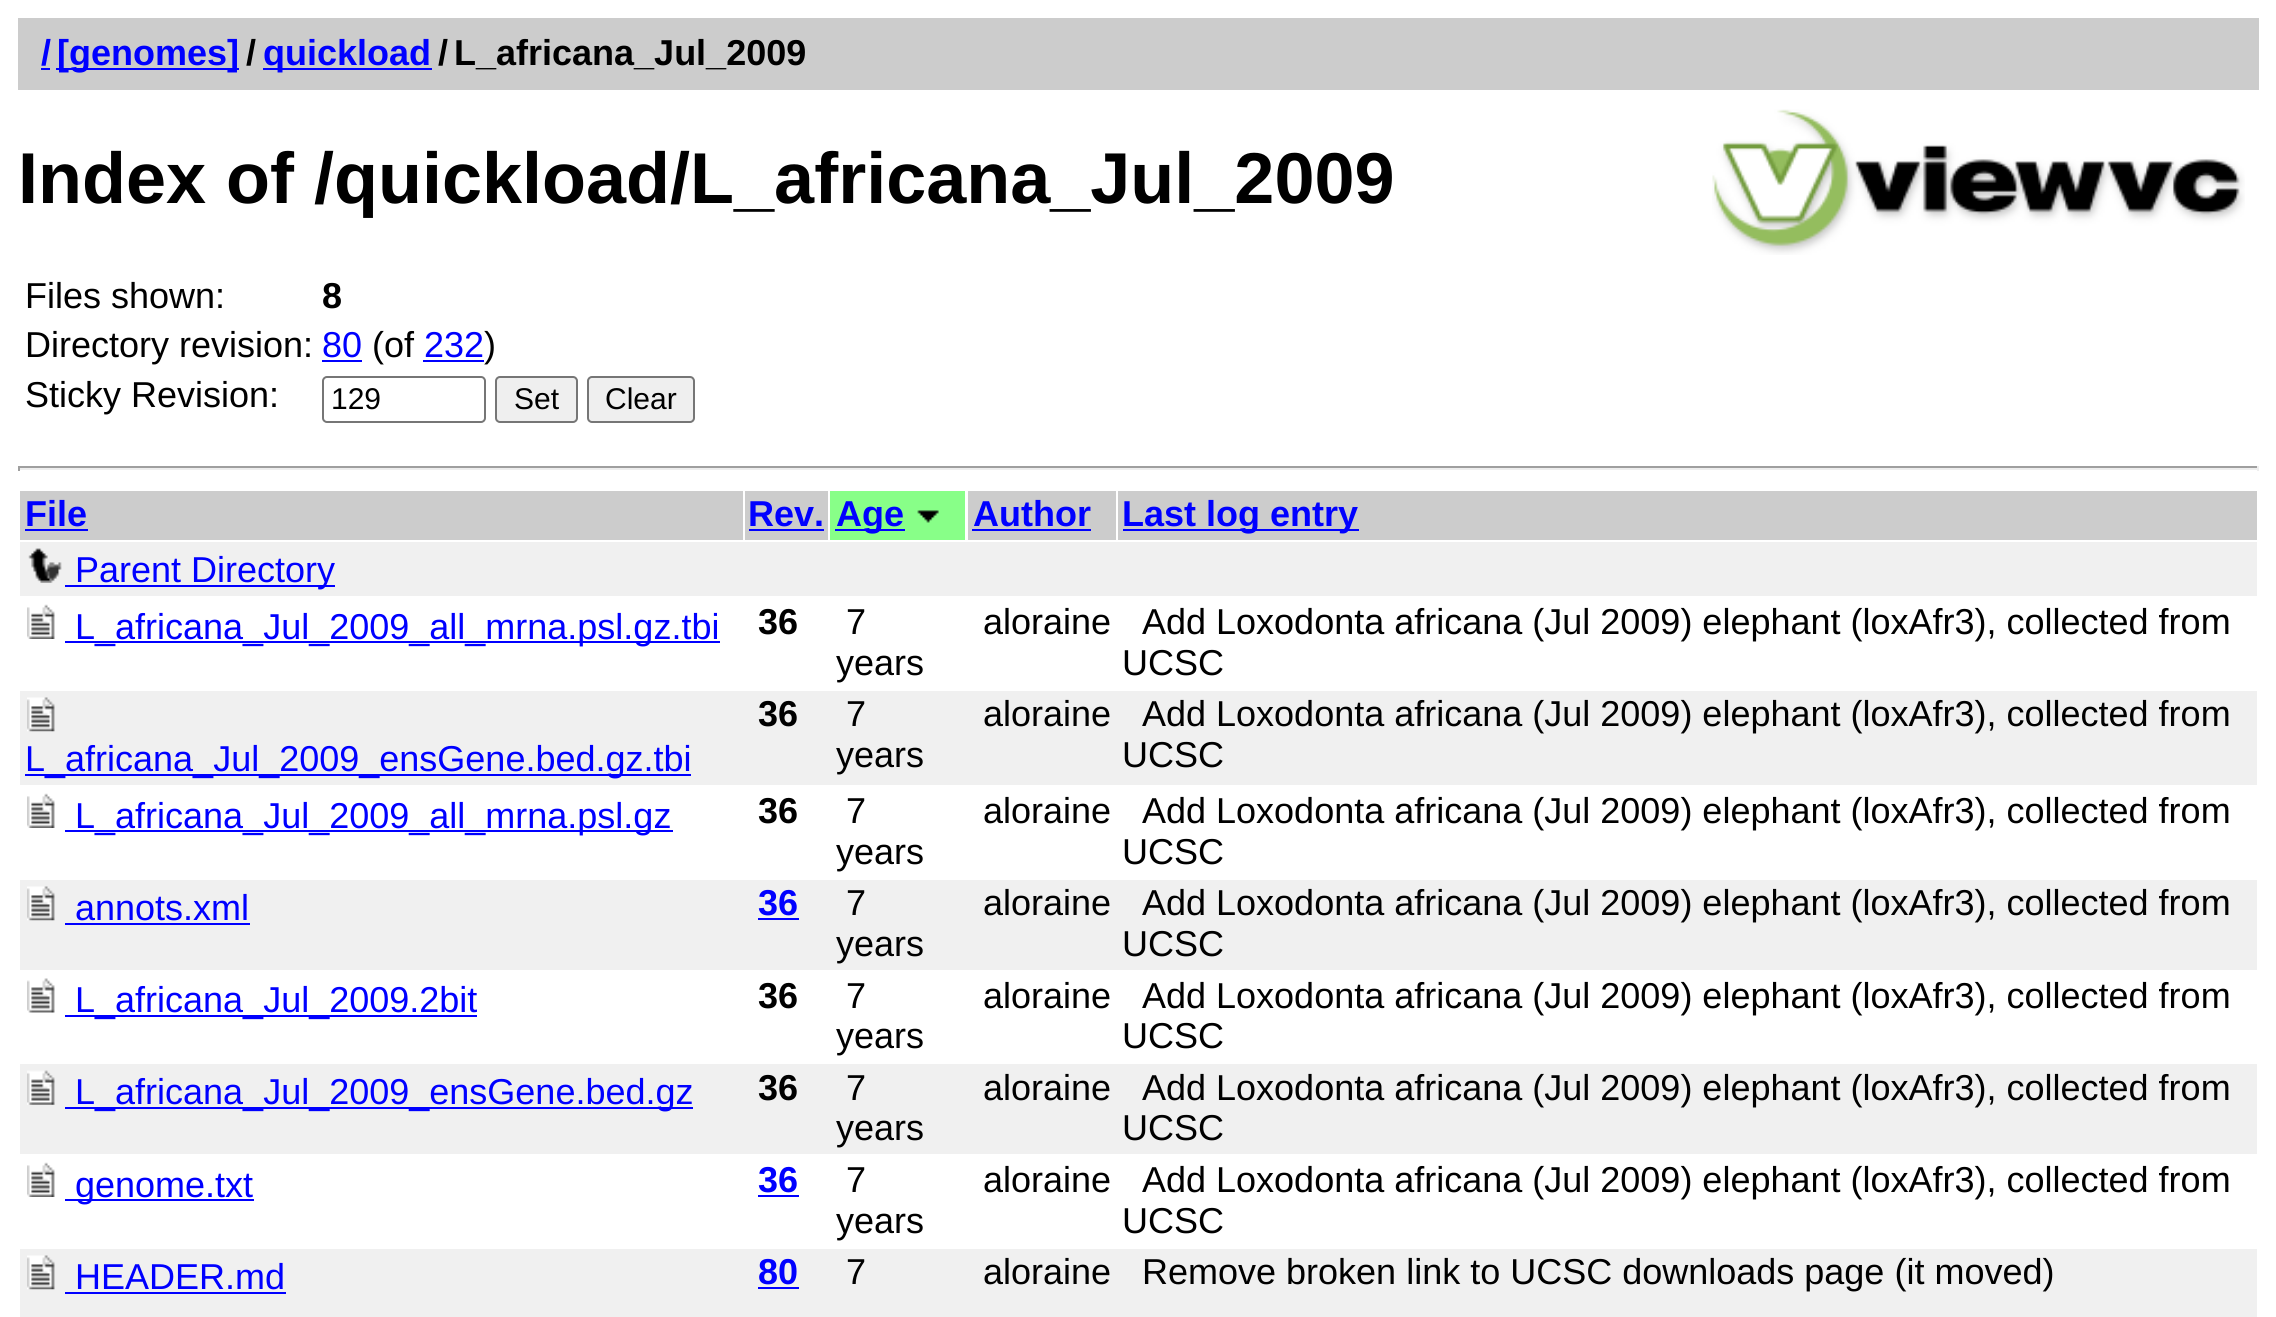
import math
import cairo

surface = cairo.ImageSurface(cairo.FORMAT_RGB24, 2276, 1317)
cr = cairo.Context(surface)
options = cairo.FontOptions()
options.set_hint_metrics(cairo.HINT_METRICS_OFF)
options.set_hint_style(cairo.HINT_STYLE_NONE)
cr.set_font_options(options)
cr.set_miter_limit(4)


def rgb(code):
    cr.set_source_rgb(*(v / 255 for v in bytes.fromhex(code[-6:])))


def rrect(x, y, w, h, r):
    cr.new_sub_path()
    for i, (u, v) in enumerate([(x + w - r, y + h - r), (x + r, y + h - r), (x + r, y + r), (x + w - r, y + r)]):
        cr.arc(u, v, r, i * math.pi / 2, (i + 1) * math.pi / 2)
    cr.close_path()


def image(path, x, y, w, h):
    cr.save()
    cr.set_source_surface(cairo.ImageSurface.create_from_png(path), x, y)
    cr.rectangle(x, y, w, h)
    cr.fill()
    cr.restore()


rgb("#ffffff")
cr.paint()
for x, y, w, h, color in [
    (18, 18, 2241, 72, "#cccccc"),
    (41, 68, 9, 2, "#0000ff"),
    (56, 68, 183, 2, "#0000ff"),
    (263, 68, 169, 2, "#0000ff"),
]:
    rgb(color)
    cr.rectangle(x, y, w, h)
    cr.fill()
image("img/1.png", 1712, 109, 533, 146)
cr.rectangle(322, 360, 40, 2)
cr.fill()
cr.rectangle(423, 360, 61, 2)
cr.fill()
rrect(323, 377, 162, 45, 4)
rgb("#767676")
cr.stroke()
rgb("#efefef")
rrect(496, 377, 81, 45, 4)
cr.fill_preserve()
rgb("#767676")
cr.stroke()
rgb("#efefef")
rrect(588, 377, 106, 45, 4)
cr.fill_preserve()
rgb("#767676")
cr.stroke()
for x, y, w, h, color in [
    (18, 466, 2241, 2, "#9f9f9f"),
    (2257, 466, 2, 5, "#eeeeee"),
    (18, 468, 2241, 2, "#eeeeee"),
    (18, 466, 2, 5, "#9f9f9f"),
    (20, 491, 723, 49, "#cccccc"),
    (25, 529, 63, 2, "#0000ff"),
    (745, 491, 83, 49, "#cccccc"),
    (749, 529, 75, 2, "#0000ff"),
    (830, 491, 135, 49, "#88ff88"),
    (835, 529, 70, 2, "#0000ff"),
]:
    rgb(color)
    cr.rectangle(x, y, w, h)
    cr.fill()
image("img/2.png", 917, 510, 22, 13)
for x, y, w, h, color in [
    (968, 491, 148, 49, "#cccccc"),
    (972, 529, 119, 2, "#0000ff"),
    (1118, 491, 1139, 49, "#cccccc"),
    (1123, 529, 236, 2, "#0000ff"),
    (20, 542, 2237, 54, "#f0f0f0"),
]:
    rgb(color)
    cr.rectangle(x, y, w, h)
    cr.fill()
image("img/3.png", 28, 548, 34, 35)
rgb("#0000ff")
cr.rectangle(65, 585, 270, 2)
cr.fill()
image("img/4.png", 27, 604, 28, 35)
cr.rectangle(65, 641, 655, 2)
cr.fill()
rgb("#f0f0f0")
cr.rectangle(20, 691, 2237, 94)
cr.fill()
image("img/5.png", 27, 697, 28, 35)
rgb("#0000ff")
cr.rectangle(25, 774, 666, 2)
cr.fill()
image("img/4.png", 27, 793, 28, 35)
cr.rectangle(65, 830, 608, 2)
cr.fill()
rgb("#f0f0f0")
cr.rectangle(20, 880, 2237, 90)
cr.fill()
image("img/5.png", 27, 886, 28, 35)
rgb("#0000ff")
cr.rectangle(65, 923, 185, 2)
cr.fill()
cr.rectangle(758, 918, 41, 2)
cr.fill()
image("img/6.png", 27, 978, 28, 35)
cr.rectangle(65, 1015, 412, 2)
cr.fill()
rgb("#f0f0f0")
cr.rectangle(20, 1064, 2237, 90)
cr.fill()
image("img/7.png", 27, 1070, 28, 35)
rgb("#0000ff")
cr.rectangle(65, 1107, 628, 2)
cr.fill()
image("img/4.png", 27, 1162, 28, 35)
for x, y, w, h, color in [
    (65, 1199, 189, 2, "#0000ff"),
    (758, 1195, 41, 2, "#0000ff"),
    (20, 1249, 2237, 68, "#f0f0f0"),
]:
    rgb(color)
    cr.rectangle(x, y, w, h)
    cr.fill()
image("img/5.png", 27, 1255, 28, 35)
rgb("#0000ff")
cr.rectangle(65, 1292, 221, 2)
cr.fill()
cr.rectangle(758, 1287, 41, 2)
cr.fill()
cr.select_font_face("Liberation Sans", cairo.FONT_SLANT_NORMAL, cairo.FONT_WEIGHT_BOLD)
cr.set_font_size(36)
cr.move_to(41, 65)
cr.show_text("/")
cr.move_to(57, 65)
cr.show_text("[genomes]")
rgb("#000000")
cr.move_to(246, 65)
cr.show_text("/")
rgb("#0000ff")
cr.move_to(263, 65)
cr.show_text("quickload")
rgb("#000000")
cr.move_to(438, 65)
cr.show_text("/")
cr.move_to(454, 65)
cr.show_text("L_africana_Jul_2009")
cr.set_font_size(72)
cr.move_to(18, 203)
cr.show_text("Index of /quickload/L_africana_Jul_2009")
cr.select_font_face("Liberation Sans")
cr.set_font_size(36)
cr.move_to(25, 308)
cr.show_text("Files shown:")
cr.select_font_face("Liberation Sans", cairo.FONT_SLANT_NORMAL, cairo.FONT_WEIGHT_BOLD)
cr.move_to(322, 308)
cr.show_text("8")
cr.select_font_face("Liberation Sans")
cr.move_to(25, 357)
cr.show_text("Directory revision:")
rgb("#0000ff")
cr.move_to(322, 357)
cr.show_text("80")
rgb("#000000")
cr.move_to(372, 357)
cr.show_text("(of")
rgb("#0000ff")
cr.move_to(424, 357)
cr.show_text("232")
rgb("#000000")
cr.move_to(484, 357)
cr.show_text(")")
cr.move_to(25, 407)
cr.show_text("Sticky Revision:")
cr.set_font_size(30)
for x, y, s in [
    (331, 409, "129"),
    (514, 409, "Set"),
    (605, 409, "Clear"),
]:
    cr.move_to(x, y)
    cr.show_text(s)
cr.select_font_face("Liberation Sans", cairo.FONT_SLANT_NORMAL, cairo.FONT_WEIGHT_BOLD)
cr.set_font_size(36)
rgb("#0000ff")
for x, y, s in [
    (25, 526, "File"),
    (748, 526, "Rev."),
    (836, 526, "Age"),
    (973, 526, "Author"),
    (1122, 526, "Last log entry"),
]:
    cr.move_to(x, y)
    cr.show_text(s)
cr.select_font_face("Liberation Sans")
cr.move_to(75, 582)
cr.show_text("Parent Directory")
cr.move_to(75, 639)
cr.show_text("L_africana_Jul_2009_all_mrna.psl.gz.tbi")
cr.select_font_face("Liberation Sans", cairo.FONT_SLANT_NORMAL, cairo.FONT_WEIGHT_BOLD)
rgb("#000000")
cr.move_to(758, 634)
cr.show_text("36")
cr.select_font_face("Liberation Sans")
for x, y, s in [
    (846, 634, "7"),
    (836, 675, "years"),
    (983, 634, "aloraine"),
    (1142, 634, "Add Loxodonta africana (Jul 2009) elephant (loxAfr3), collected from"),
    (1122, 675, "UCSC"),
]:
    cr.move_to(x, y)
    cr.show_text(s)
rgb("#0000ff")
cr.move_to(25, 771)
cr.show_text("L_africana_Jul_2009_ensGene.bed.gz.tbi")
cr.select_font_face("Liberation Sans", cairo.FONT_SLANT_NORMAL, cairo.FONT_WEIGHT_BOLD)
rgb("#000000")
cr.move_to(758, 726)
cr.show_text("36")
cr.select_font_face("Liberation Sans")
for x, y, s in [
    (846, 726, "7"),
    (836, 767, "years"),
    (983, 726, "aloraine"),
    (1142, 726, "Add Loxodonta africana (Jul 2009) elephant (loxAfr3), collected from"),
    (1122, 767, "UCSC"),
]:
    cr.move_to(x, y)
    cr.show_text(s)
rgb("#0000ff")
cr.move_to(75, 828)
cr.show_text("L_africana_Jul_2009_all_mrna.psl.gz")
cr.select_font_face("Liberation Sans", cairo.FONT_SLANT_NORMAL, cairo.FONT_WEIGHT_BOLD)
rgb("#000000")
cr.move_to(758, 823)
cr.show_text("36")
cr.select_font_face("Liberation Sans")
for x, y, s in [
    (846, 823, "7"),
    (836, 864, "years"),
    (983, 823, "aloraine"),
    (1142, 823, "Add Loxodonta africana (Jul 2009) elephant (loxAfr3), collected from"),
    (1122, 864, "UCSC"),
]:
    cr.move_to(x, y)
    cr.show_text(s)
rgb("#0000ff")
cr.move_to(75, 920)
cr.show_text("annots.xml")
cr.select_font_face("Liberation Sans", cairo.FONT_SLANT_NORMAL, cairo.FONT_WEIGHT_BOLD)
cr.move_to(758, 915)
cr.show_text("36")
cr.select_font_face("Liberation Sans")
rgb("#000000")
for x, y, s in [
    (846, 915, "7"),
    (836, 956, "years"),
    (983, 915, "aloraine"),
    (1142, 915, "Add Loxodonta africana (Jul 2009) elephant (loxAfr3), collected from"),
    (1122, 956, "UCSC"),
]:
    cr.move_to(x, y)
    cr.show_text(s)
rgb("#0000ff")
cr.move_to(75, 1012)
cr.show_text("L_africana_Jul_2009.2bit")
cr.select_font_face("Liberation Sans", cairo.FONT_SLANT_NORMAL, cairo.FONT_WEIGHT_BOLD)
rgb("#000000")
cr.move_to(758, 1008)
cr.show_text("36")
cr.select_font_face("Liberation Sans")
for x, y, s in [
    (846, 1008, "7"),
    (836, 1048, "years"),
    (983, 1008, "aloraine"),
    (1142, 1008, "Add Loxodonta africana (Jul 2009) elephant (loxAfr3), collected from"),
    (1122, 1048, "UCSC"),
]:
    cr.move_to(x, y)
    cr.show_text(s)
rgb("#0000ff")
cr.move_to(75, 1104)
cr.show_text("L_africana_Jul_2009_ensGene.bed.gz")
cr.select_font_face("Liberation Sans", cairo.FONT_SLANT_NORMAL, cairo.FONT_WEIGHT_BOLD)
rgb("#000000")
cr.move_to(758, 1100)
cr.show_text("36")
cr.select_font_face("Liberation Sans")
for x, y, s in [
    (846, 1100, "7"),
    (836, 1140, "years"),
    (983, 1100, "aloraine"),
    (1142, 1100, "Add Loxodonta africana (Jul 2009) elephant (loxAfr3), collected from"),
    (1122, 1140, "UCSC"),
]:
    cr.move_to(x, y)
    cr.show_text(s)
rgb("#0000ff")
cr.move_to(75, 1197)
cr.show_text("genome.txt")
cr.select_font_face("Liberation Sans", cairo.FONT_SLANT_NORMAL, cairo.FONT_WEIGHT_BOLD)
cr.move_to(758, 1192)
cr.show_text("36")
cr.select_font_face("Liberation Sans")
rgb("#000000")
for x, y, s in [
    (846, 1192, "7"),
    (836, 1233, "years"),
    (983, 1192, "aloraine"),
    (1142, 1192, "Add Loxodonta africana (Jul 2009) elephant (loxAfr3), collected from"),
    (1122, 1233, "UCSC"),
]:
    cr.move_to(x, y)
    cr.show_text(s)
rgb("#0000ff")
cr.move_to(75, 1289)
cr.show_text("HEADER.md")
cr.select_font_face("Liberation Sans", cairo.FONT_SLANT_NORMAL, cairo.FONT_WEIGHT_BOLD)
cr.move_to(758, 1284)
cr.show_text("80")
cr.select_font_face("Liberation Sans")
rgb("#000000")
for x, y, s in [
    (846, 1284, "7"),
    (983, 1284, "aloraine"),
    (1142, 1284, "Remove broken link to UCSC downloads page (it moved)"),
]:
    cr.move_to(x, y)
    cr.show_text(s)
surface.write_to_png("page.png")
